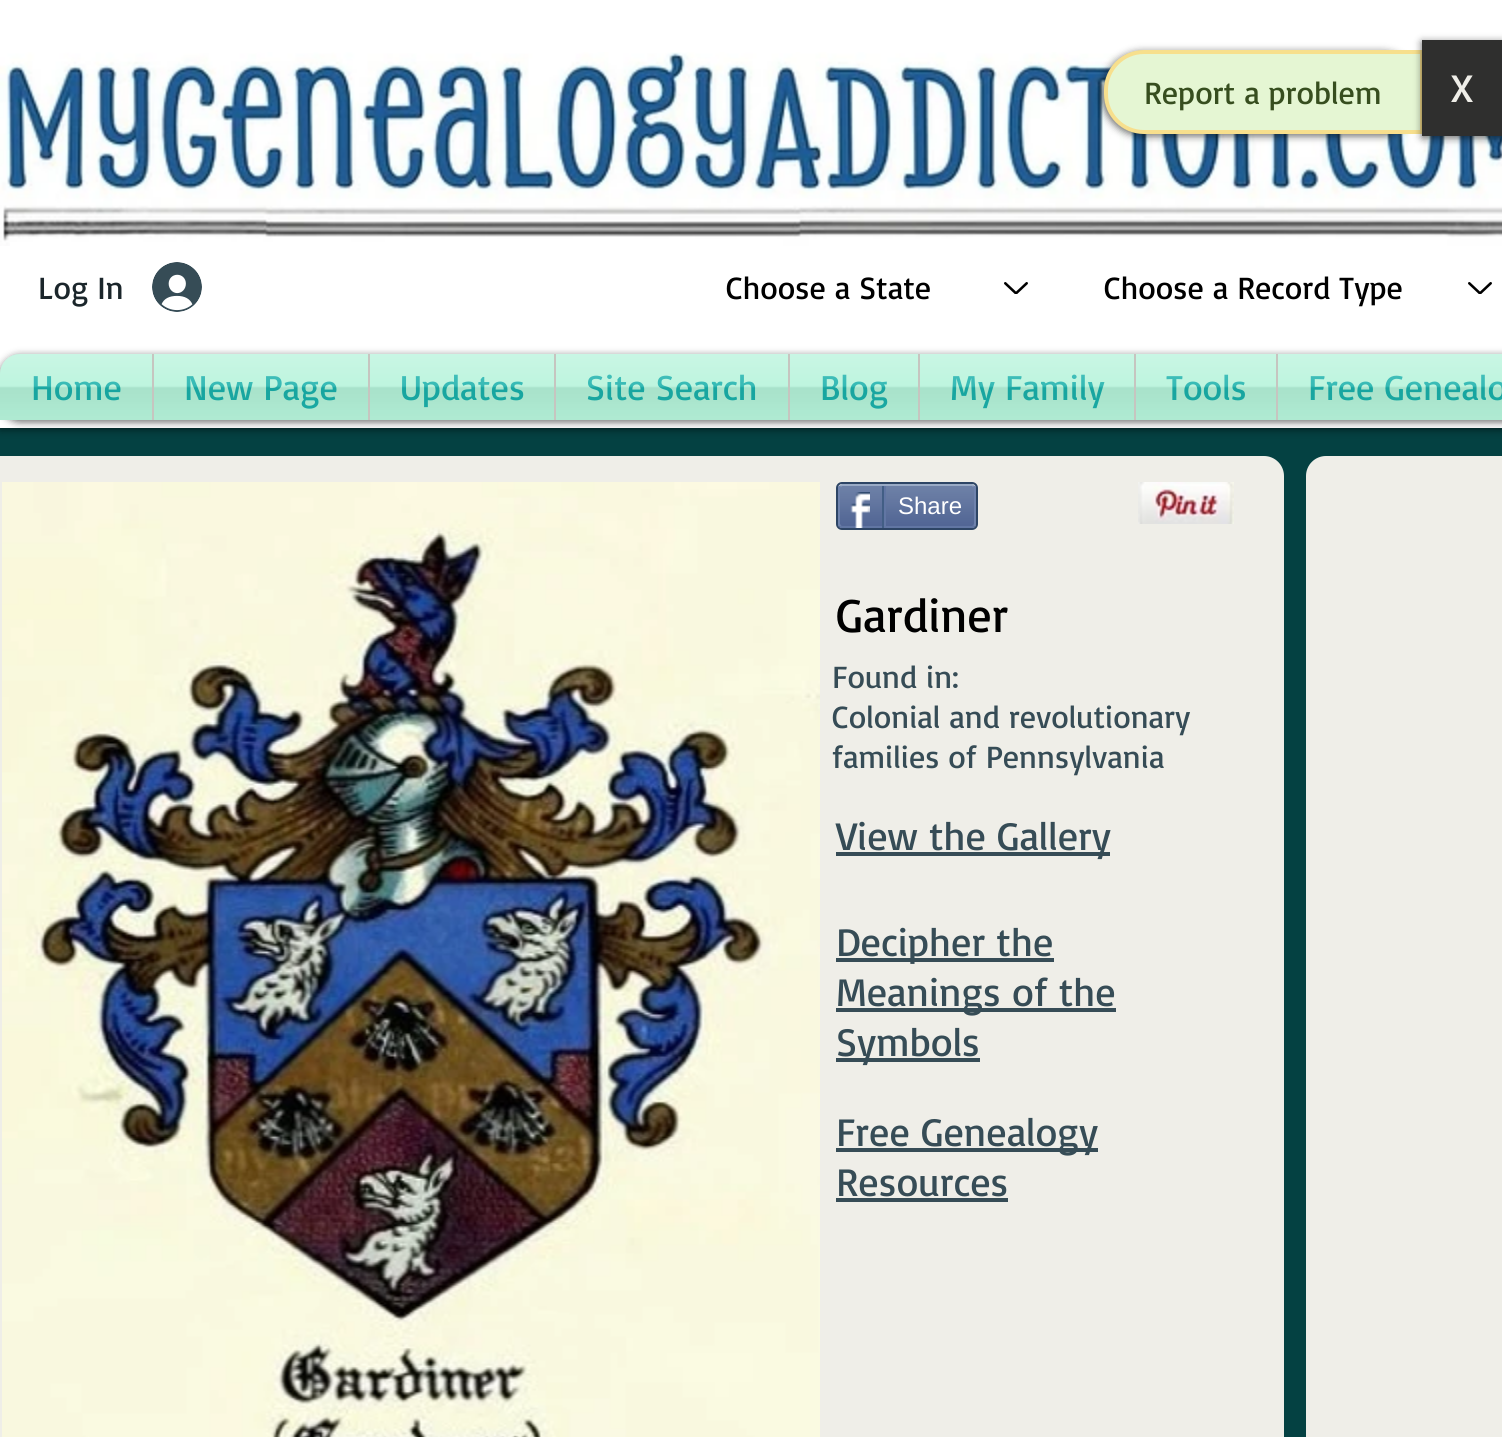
import math
import cairo

surface = cairo.ImageSurface(cairo.FORMAT_RGB24, 1502, 1437)
cr = cairo.Context(surface)
options = cairo.FontOptions()
options.set_hint_metrics(cairo.HINT_METRICS_OFF)
options.set_hint_style(cairo.HINT_STYLE_NONE)
cr.set_font_options(options)
cr.set_miter_limit(4)


def rgb(code):
    cr.set_source_rgb(*(v / 255 for v in bytes.fromhex(code[-6:])))


def rrect(x, y, w, h, r):
    cr.new_sub_path()
    for i, (u, v) in enumerate([(x + w - r, y + h - r), (x + r, y + h - r), (x + r, y + r), (x + w - r, y + r)]):
        cr.arc(u, v, r, i * math.pi / 2, (i + 1) * math.pi / 2)
    cr.close_path()


def soft_shadow(x, y, w, h, r, blur, alpha):
    cr.push_group_with_content(cairo.CONTENT_ALPHA)
    cr.set_operator(cairo.OPERATOR_SOURCE)
    for i in range(15, -16, -2):
        e = blur * i / 6
        if min(w, h) + 2 * e > 0:
            cr.set_source_rgba(0, 0, 0, alpha * math.erfc((i - 1) / 8.5) / 2)
            rrect(x - e, y - e, w + 2 * e, h + 2 * e, max(0, min(r + e + blur * .6, min(w, h) / 2 + e)))
            cr.fill()
    cr.mask(cr.pop_group())


def image(path, x, y, w, h):
    cr.save()
    cr.set_source_surface(cairo.ImageSurface.create_from_png(path), x, y)
    cr.rectangle(x, y, w, h)
    cr.fill()
    cr.restore()


rgb("#044142")
cr.paint()
rgb("#000000")
soft_shadow(0, 0, 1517, 428, 0, 5, 0.7)
rgb("#ffffff")
cr.rectangle(0, 0, 1502, 428)
cr.fill()
image("img/1.png", 0, 52, 1502, 194)
rgb("#000000")
soft_shadow(1102, 52, 320, 84, 40, 4, 0.6)
rgb("#e5f6d3")
cr.new_path()
cr.move_to(1144, 52)
cr.line_to(1422, 52)
cr.line_to(1422, 132)
cr.line_to(1144, 132)
cr.curve_to(1123, 132, 1106, 115, 1106, 94)
cr.line_to(1106, 90)
cr.curve_to(1106, 69, 1123, 52, 1144, 52)
cr.close_path()
cr.fill_preserve()
rgb("#f7df8d")
cr.set_line_width(4)
cr.stroke()
rgb("#000000")
soft_shadow(1422, 42, 80, 96, 0, 4, 0.6)
rgb("#2f2f2e")
cr.rectangle(1422, 40, 80, 96)
cr.fill()
rgb("#ffffff")
cr.new_path()
cr.move_to(10, 242)
cr.line_to(690, 242)
cr.line_to(690, 332)
cr.line_to(30, 332)
cr.curve_to(19, 332, 10, 323, 10, 312)
cr.close_path()
cr.fill()
image("img/2.png", 152, 262, 50, 50)
image("img/3.png", 1004, 282, 24, 12)
image("img/3.png", 1468, 282, 24, 12)
rgb("#000000")
soft_shadow(0, 356, 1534, 66, 20, 4, 0.6)
image("img/4.png", 0, 354, 20, 20)
rgb("#b5f3da")
cr.new_path()
cr.move_to(20, 354)
cr.line_to(152, 354)
cr.line_to(152, 420)
cr.line_to(0, 420)
cr.line_to(0, 374)
cr.curve_to(0, 363, 9, 354, 20, 354)
cr.close_path()
cr.fill()
for x, y, w, h, color in [
    (154, 354, 214, 66, "#b5f3da"),
    (152, 354, 2, 66, "#c6c5c0"),
    (370, 354, 184, 66, "#b5f3da"),
    (368, 354, 2, 66, "#c6c5c0"),
    (556, 354, 232, 66, "#b5f3da"),
    (554, 354, 2, 66, "#c6c5c0"),
    (790, 354, 128, 66, "#b5f3da"),
    (788, 354, 2, 66, "#c6c5c0"),
    (920, 354, 214, 66, "#b5f3da"),
    (918, 354, 2, 66, "#c6c5c0"),
    (1136, 354, 140, 66, "#b5f3da"),
    (1134, 354, 2, 66, "#c6c5c0"),
    (1278, 354, 224, 66, "#b5f3da"),
    (1276, 354, 2, 66, "#c6c5c0"),
]:
    rgb(color)
    cr.rectangle(x, y, w, h)
    cr.fill()
rgb("#efeee8")
cr.new_path()
cr.move_to(0, 456)
cr.line_to(1264, 456)
cr.curve_to(1275, 456, 1284, 465, 1284, 476)
cr.line_to(1284, 1437)
cr.curve_to(1284, 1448, 1275, 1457, 1264, 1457)
cr.line_to(0, 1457)
cr.close_path()
cr.fill()
image("img/13.png", 2, 482, 818, 955)
rrect(837, 483, 140, 46, 5)
rgb("#2d4565")
cr.set_line_width(2)
cr.stroke()
image("img/14.png", 838, 486, 138, 42)
cr.new_path()
cr.move_to(840, 486)
cr.line_to(842, 485)
cr.line_to(972, 485)
cr.line_to(974, 486)
rgb("#9aabc6")
cr.stroke()
cr.new_path()
cr.move_to(974, 486)
cr.line_to(975, 488)
cr.line_to(975, 524)
cr.line_to(974, 526)
rgb("#6f83ad")
cr.stroke()
cr.new_path()
cr.move_to(974, 526)
cr.line_to(972, 527)
cr.line_to(842, 527)
cr.line_to(840, 526)
rgb("#6176a3")
cr.stroke()
cr.new_path()
cr.move_to(840, 526)
cr.line_to(839, 524)
cr.line_to(839, 488)
cr.line_to(840, 486)
rgb("#6f83ad")
cr.stroke()
image("img/15.png", 850, 492, 20, 36)
rgb("#425e85")
cr.rectangle(882, 486, 2, 42)
cr.fill()
rgb("#6176a3")
cr.rectangle(884, 486, 2, 40)
cr.fill()
image("img/16.png", 1138, 482, 96, 42)
for x, y, w, h, color in [
    (836, 852, 274, 4, "#364c56"),
    (836, 958, 218, 4, "#364c56"),
    (836, 1008, 280, 4, "#364c56"),
    (836, 1058, 144, 4, "#364c56"),
    (836, 1148, 262, 4, "#364c56"),
    (836, 1198, 172, 4, "#364c56"),
]:
    rgb(color)
    cr.rectangle(x, y, w, h)
    cr.fill()
rgb("#efeee8")
rrect(1306, 456, 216, 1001, 20)
cr.fill()
cr.select_font_face("Basic")
cr.set_font_size(32)
rgb("#374e1f")
cr.move_to(1144, 104)
cr.show_text("Report a problem")
cr.set_font_size(40)
rgb("#efeee8")
cr.move_to(1451, 102)
cr.show_text("X")
cr.set_font_size(32)
rgb("#1b262b")
cr.move_to(38, 299)
cr.show_text("Log In")
rgb("#000000")
cr.move_to(726, 299)
cr.show_text("Choose a State")
cr.move_to(1104, 299)
cr.show_text("Choose a Record Type")
cr.set_font_size(36)
rgb("#1ab1ab")
cr.move_to(31, 400)
cr.show_text("Home")
image("img/5.png", 0, 354, 152, 66)
cr.move_to(184, 400)
cr.show_text("New Page")
image("img/6.png", 154, 354, 214, 66)
cr.move_to(400, 400)
cr.show_text("Updates")
image("img/7.png", 370, 354, 184, 66)
cr.move_to(586, 400)
cr.show_text("Site Search")
image("img/8.png", 556, 354, 232, 66)
cr.move_to(820, 400)
cr.show_text("Blog")
image("img/9.png", 790, 354, 128, 66)
cr.move_to(950, 400)
cr.show_text("My Family")
image("img/10.png", 920, 354, 214, 66)
cr.move_to(1166, 400)
cr.show_text("Tools")
image("img/11.png", 1136, 354, 140, 66)
cr.move_to(1308, 400)
cr.show_text("Free Genealo")
image("img/12.png", 1278, 354, 224, 66)
cr.select_font_face("Liberation Sans")
cr.set_font_size(24)
rgb("#ffffff")
cr.move_to(898, 514)
cr.show_text("Share")
cr.select_font_face("Basic")
cr.set_font_size(48)
rgb("#000000")
cr.move_to(836, 632)
cr.show_text("Gardiner")
cr.set_font_size(32)
rgb("#364c56")
for x, y, s in [
    (832, 688, "Found in:"),
    (832, 728, "Colonial and revolutionary"),
    (832, 768, "families of Pennsylvania"),
]:
    cr.move_to(x, y)
    cr.show_text(s)
cr.set_font_size(40)
for x, y, s in [
    (836, 850, "View the Gallery"),
    (836, 956, "Decipher the"),
    (836, 1006, "Meanings of the"),
    (836, 1056, "Symbols"),
    (836, 1146, "Free Genealogy"),
    (836, 1196, "Resources"),
]:
    cr.move_to(x, y)
    cr.show_text(s)
surface.write_to_png("page.png")
